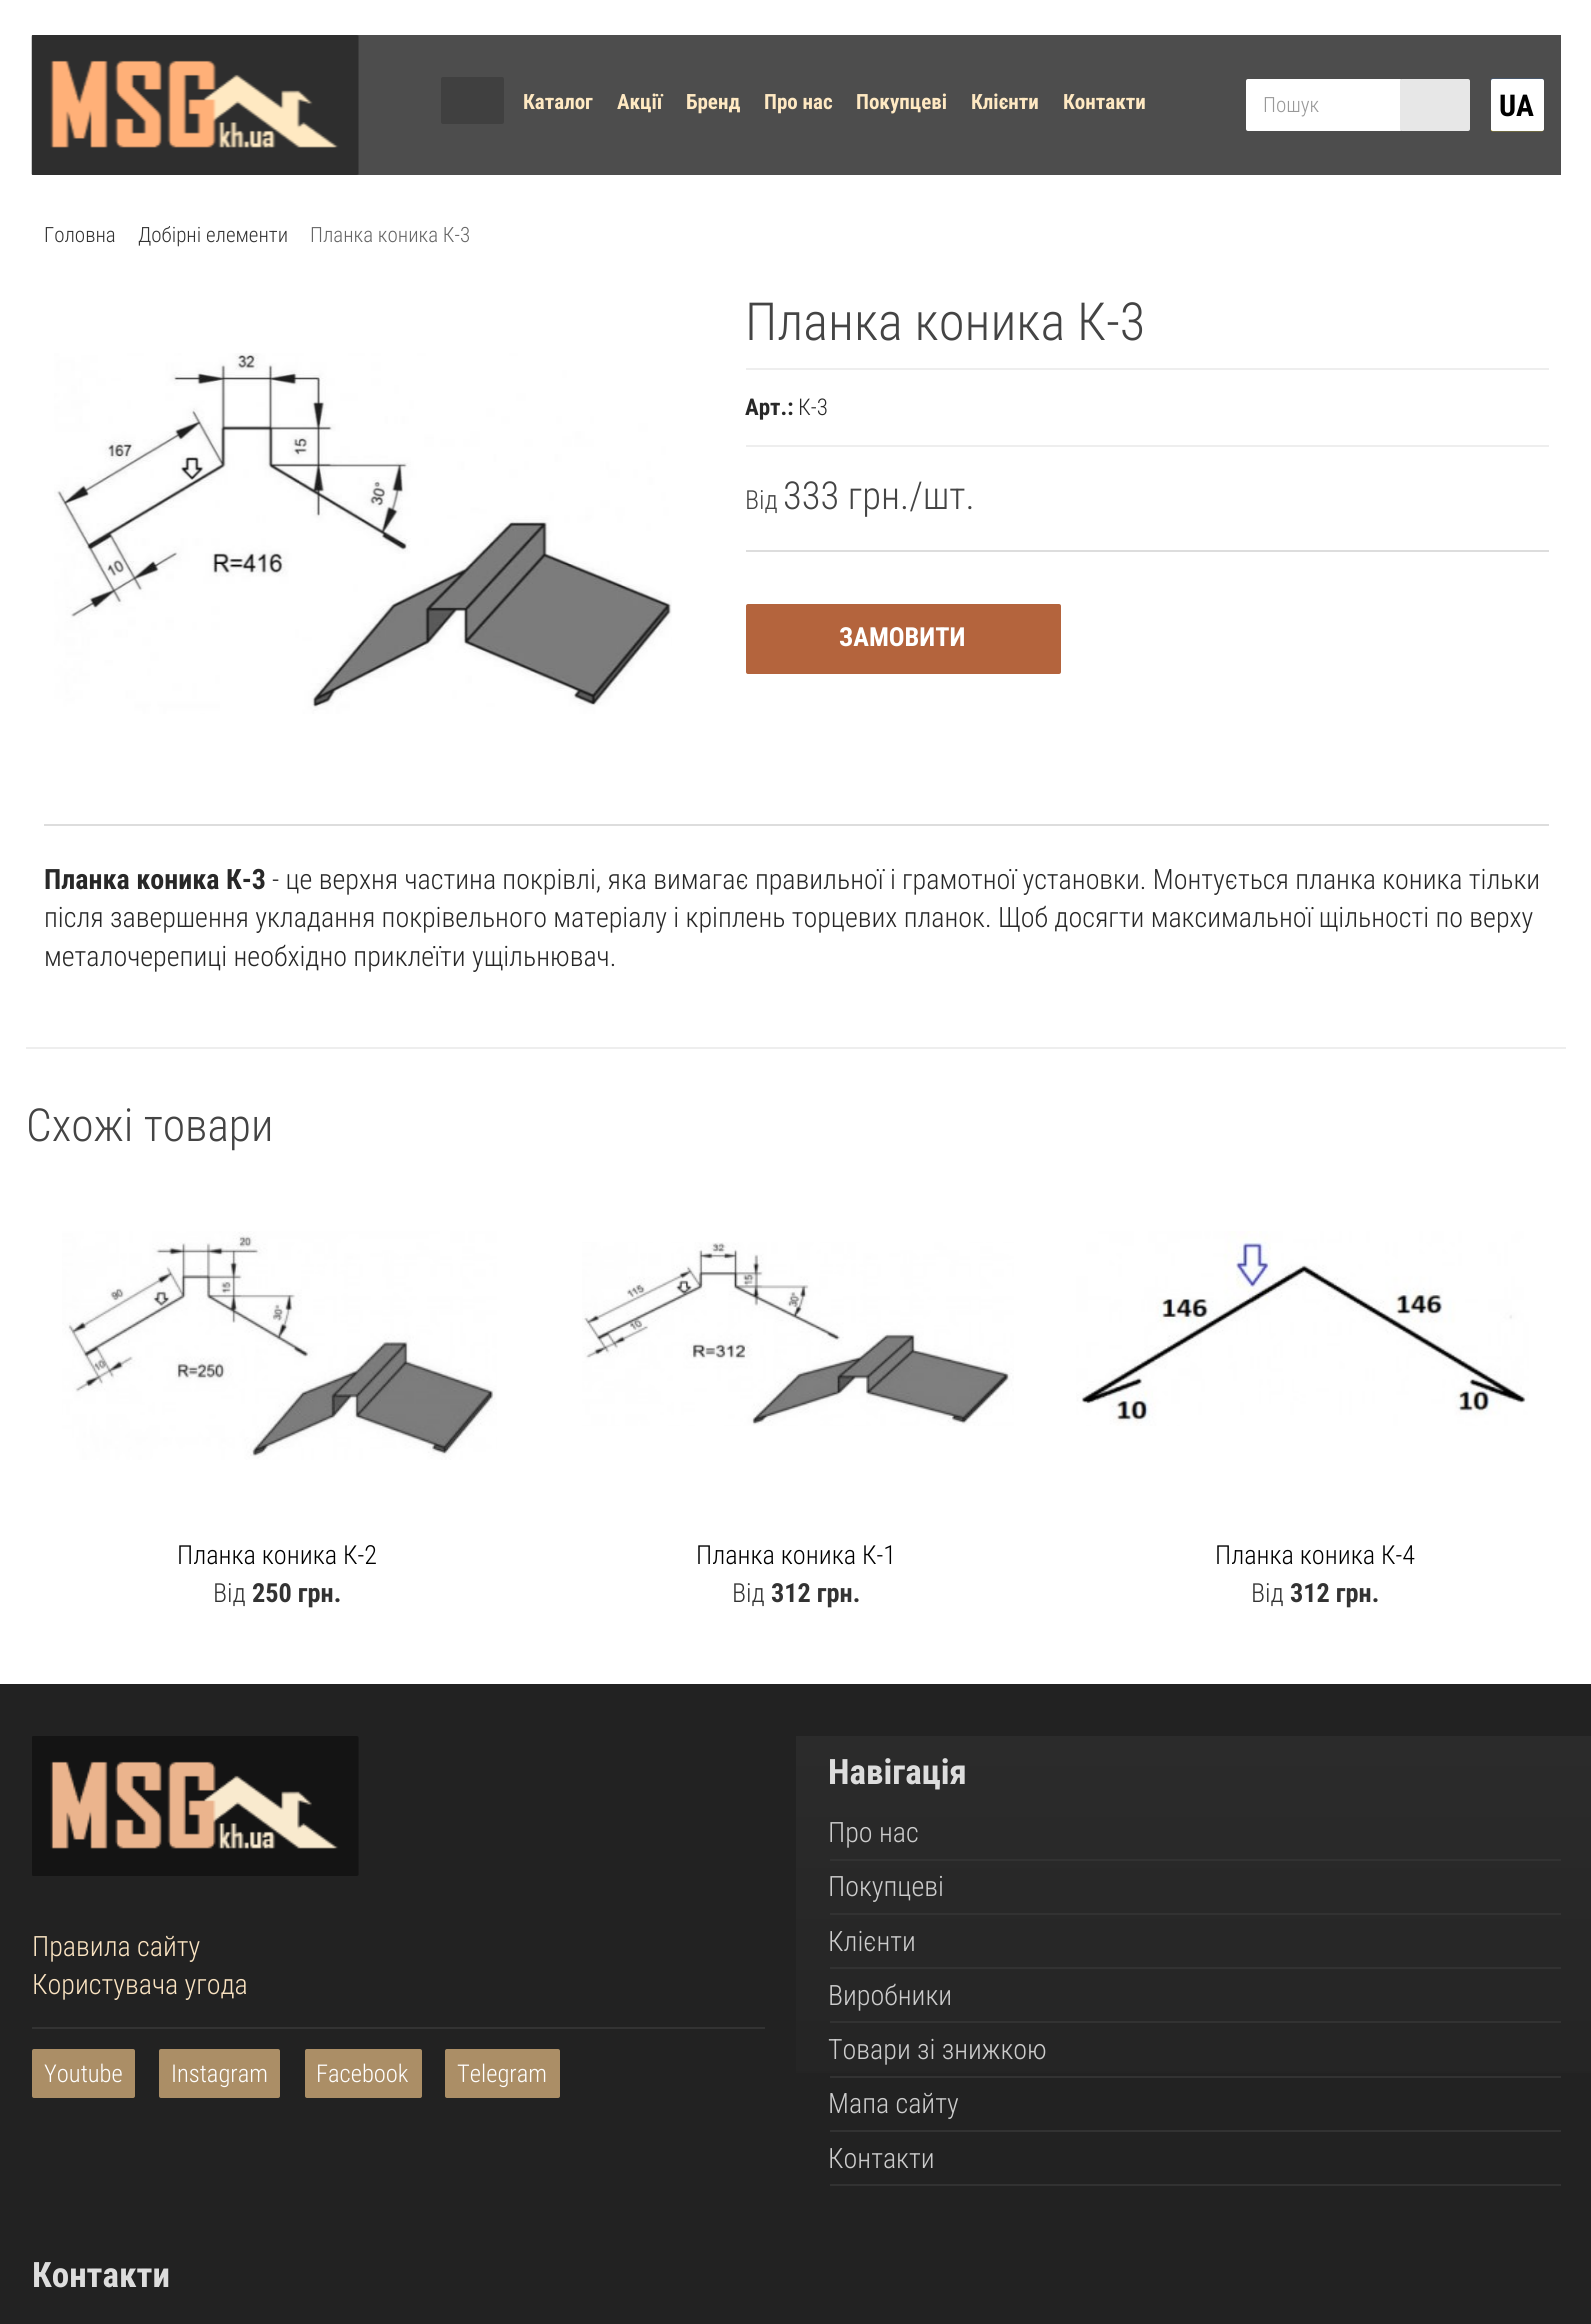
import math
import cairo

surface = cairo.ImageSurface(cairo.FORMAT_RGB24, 1591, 2324)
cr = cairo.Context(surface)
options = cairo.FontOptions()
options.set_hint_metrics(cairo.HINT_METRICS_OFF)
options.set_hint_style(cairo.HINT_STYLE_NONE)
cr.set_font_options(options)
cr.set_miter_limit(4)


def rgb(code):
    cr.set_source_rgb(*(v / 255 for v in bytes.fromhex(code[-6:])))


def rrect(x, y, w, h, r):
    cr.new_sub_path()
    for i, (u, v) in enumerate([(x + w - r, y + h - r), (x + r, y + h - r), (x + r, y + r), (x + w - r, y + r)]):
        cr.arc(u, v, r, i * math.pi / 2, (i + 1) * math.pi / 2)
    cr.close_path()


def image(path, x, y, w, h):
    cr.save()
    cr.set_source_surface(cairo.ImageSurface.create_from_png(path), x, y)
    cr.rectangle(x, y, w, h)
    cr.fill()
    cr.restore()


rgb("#ffffff")
cr.paint()
rgb("#4d4d4d")
cr.rectangle(32, 35, 1529, 140)
cr.fill()
image("img/1.png", 31, 35, 328, 140)
rgb("#404040")
rrect(441, 77, 63, 47, 2)
cr.fill()
rgb("#ffffff")
rrect(1246, 79, 156, 52, 2)
cr.fill()
rgb("#e7e7e7")
rrect(1400, 79, 70, 52, 2)
cr.fill()
image("img/2.png", 1491, 78, 53, 54)
rgb("#ffffff")
rrect(1491, 79, 53, 52, 2)
cr.fill()
image("img/3.png", 54, 353, 618, 361)
for x, y, w, h, color in [
    (746, 368, 803, 2, "#eeeeee"),
    (746, 445, 803, 2, "#eeeeee"),
    (746, 550, 803, 2, "#dddddd"),
]:
    rgb(color)
    cr.rectangle(x, y, w, h)
    cr.fill()
rgb("#b4643d")
rrect(746, 604, 315, 70, 2)
cr.fill()
rgb("#dddddd")
cr.rectangle(44, 824, 1505, 2)
cr.fill()
rgb("#eeeeee")
cr.rectangle(26, 1047, 1540, 2)
cr.fill()
image("img/4.png", 62, 1231, 435, 229)
image("img/5.png", 582, 1242, 432, 184)
image("img/6.png", 1076, 1231, 453, 195)
rgb("#222222")
cr.rectangle(0, 1684, 1591, 640)
cr.fill()
image("img/7.png", 32, 1736, 327, 140)
rgb("#333333")
cr.rectangle(32, 2027, 733, 2)
cr.fill()
rgb("#ab8e66")
rrect(32, 2049, 103, 49, 2)
cr.fill()
rrect(159, 2049, 121, 49, 2)
cr.fill()
rrect(305, 2049, 117, 49, 2)
cr.fill()
rrect(445, 2049, 115, 49, 2)
cr.fill()
gradient = cairo.LinearGradient(1194, 1736, 1194, 2203)
gradient.add_color_stop_rgba(0, 0.169, 0.169, 0.169, 1)
gradient.add_color_stop_rgba(1, 0.133, 0.133, 0.133, 1)
cr.set_source(gradient)
cr.rectangle(796, 1736, 795, 337)
cr.fill()
for x, y, w, h, color in [
    (830, 1859, 731, 2, "#323232"),
    (830, 1913, 731, 2, "#323232"),
    (830, 1967, 731, 2, "#323232"),
    (830, 2021, 731, 2, "#323232"),
    (830, 2076, 731, 2, "#323232"),
    (830, 2130, 731, 2, "#323232"),
    (830, 2184, 731, 2, "#323232"),
]:
    rgb(color)
    cr.rectangle(x, y, w, h)
    cr.fill()
cr.select_font_face("Roboto Condensed", cairo.FONT_SLANT_NORMAL, cairo.FONT_WEIGHT_BOLD)
cr.set_font_size(21)
rgb("#ffe9c2")
for x, y, s in [
    (523, 109, "Каталог"),
    (617, 109, "Акції"),
    (686, 109, "Бренд"),
    (764, 109, "Про нас"),
    (856, 109, "Покупцеві"),
    (971, 109, "Клієнти"),
    (1063, 109, "Контакти"),
]:
    cr.move_to(x, y)
    cr.show_text(s)
cr.select_font_face("Roboto Condensed Light")
rgb("#999999")
cr.move_to(1263, 112)
cr.show_text("Пошук")
cr.select_font_face("Roboto Condensed", cairo.FONT_SLANT_NORMAL, cairo.FONT_WEIGHT_BOLD)
cr.set_font_size(30)
rgb("#000000")
cr.move_to(1499, 116)
cr.show_text("UA")
cr.select_font_face("Roboto Condensed Light")
cr.set_font_size(21)
rgb("#333333")
cr.move_to(44, 242)
cr.show_text("Головна")
cr.move_to(138, 242)
cr.show_text("Добірні елементи")
rgb("#666666")
cr.move_to(310, 242)
cr.show_text("Планка коника К-3")
cr.set_font_size(52.5)
rgb("#444444")
cr.move_to(745, 340)
cr.show_text("Планка коника К-3")
cr.select_font_face("Roboto Condensed", cairo.FONT_SLANT_NORMAL, cairo.FONT_WEIGHT_BOLD)
cr.set_font_size(23)
rgb("#282828")
cr.move_to(745, 415)
cr.show_text("Арт.:")
cr.select_font_face("Roboto Condensed Light")
cr.move_to(798, 415)
cr.show_text("К-3")
cr.set_font_size(26.25)
rgb("#444444")
cr.move_to(745, 509)
cr.show_text("Від")
cr.set_font_size(38.5)
cr.move_to(783, 509)
cr.show_text("333 грн./шт.")
cr.select_font_face("Roboto Condensed", cairo.FONT_SLANT_NORMAL, cairo.FONT_WEIGHT_BOLD)
cr.set_font_size(26.25)
rgb("#ffffff")
cr.move_to(839, 646)
cr.show_text("ЗАМОВИТИ")
cr.set_font_size(28)
rgb("#282828")
cr.move_to(44, 889)
cr.show_text("Планка коника К-3")
cr.select_font_face("Roboto Condensed Light")
for x, y, s in [
    (272, 889, "- це верхня частина покрівлі, яка вимагає правильної і грамотної установки. Монтується планка коника тільки"),
    (44, 927, "після завершення укладання покрівельного матеріалу і кріплень торцевих планок. Щоб досягти максимальної щільності по верху"),
    (44, 966, "металочерепиці необхідно приклеїти ущільнювач."),
]:
    cr.move_to(x, y)
    cr.show_text(s)
cr.set_font_size(45.5)
rgb("#444444")
cr.move_to(26, 1141)
cr.show_text("Схожі товари")
cr.set_font_size(26.25)
rgb("#000000")
cr.move_to(177, 1564)
cr.show_text("Планка коника К-2")
rgb("#333333")
cr.move_to(213, 1602)
cr.show_text("Від")
cr.select_font_face("Roboto Condensed", cairo.FONT_SLANT_NORMAL, cairo.FONT_WEIGHT_BOLD)
cr.move_to(252, 1602)
cr.show_text("250 грн.")
cr.select_font_face("Roboto Condensed Light")
rgb("#000000")
cr.move_to(696, 1564)
cr.show_text("Планка коника К-1")
rgb("#333333")
cr.move_to(732, 1602)
cr.show_text("Від")
cr.select_font_face("Roboto Condensed", cairo.FONT_SLANT_NORMAL, cairo.FONT_WEIGHT_BOLD)
cr.move_to(771, 1602)
cr.show_text("312 грн.")
cr.select_font_face("Roboto Condensed Light")
rgb("#000000")
cr.move_to(1215, 1564)
cr.show_text("Планка коника К-4")
rgb("#333333")
cr.move_to(1251, 1602)
cr.show_text("Від")
cr.select_font_face("Roboto Condensed", cairo.FONT_SLANT_NORMAL, cairo.FONT_WEIGHT_BOLD)
cr.move_to(1290, 1602)
cr.show_text("312 грн.")
cr.select_font_face("Roboto Condensed Light")
cr.set_font_size(28)
rgb("#fae3c1")
cr.move_to(32, 1956)
cr.show_text("Правила сайту")
cr.move_to(32, 1994)
cr.show_text("Користувача угода")
cr.set_font_size(24.5)
rgb("#ffffff")
for x, y, s in [
    (44, 2082, "Youtube"),
    (171, 2082, "Instagram"),
    (316, 2082, "Facebook"),
    (457, 2082, "Telegram"),
]:
    cr.move_to(x, y)
    cr.show_text(s)
cr.select_font_face("Roboto Condensed", cairo.FONT_SLANT_NORMAL, cairo.FONT_WEIGHT_BOLD)
cr.set_font_size(35)
rgb("#dddddd")
cr.move_to(828, 1784)
cr.show_text("Навігація")
cr.select_font_face("Roboto Condensed Light")
cr.set_font_size(28)
rgb("#cccccc")
for x, y, s in [
    (828, 1842, "Про нас"),
    (828, 1896, "Покупцеві"),
    (828, 1951, "Клієнти"),
    (828, 2005, "Виробники"),
    (828, 2059, "Товари зі знижкою"),
    (828, 2113, "Мапа сайту"),
    (828, 2168, "Контакти"),
]:
    cr.move_to(x, y)
    cr.show_text(s)
cr.select_font_face("Roboto Condensed", cairo.FONT_SLANT_NORMAL, cairo.FONT_WEIGHT_BOLD)
cr.set_font_size(35)
rgb("#dddddd")
cr.move_to(32, 2287)
cr.show_text("Контакти")
surface.write_to_png("page.png")
